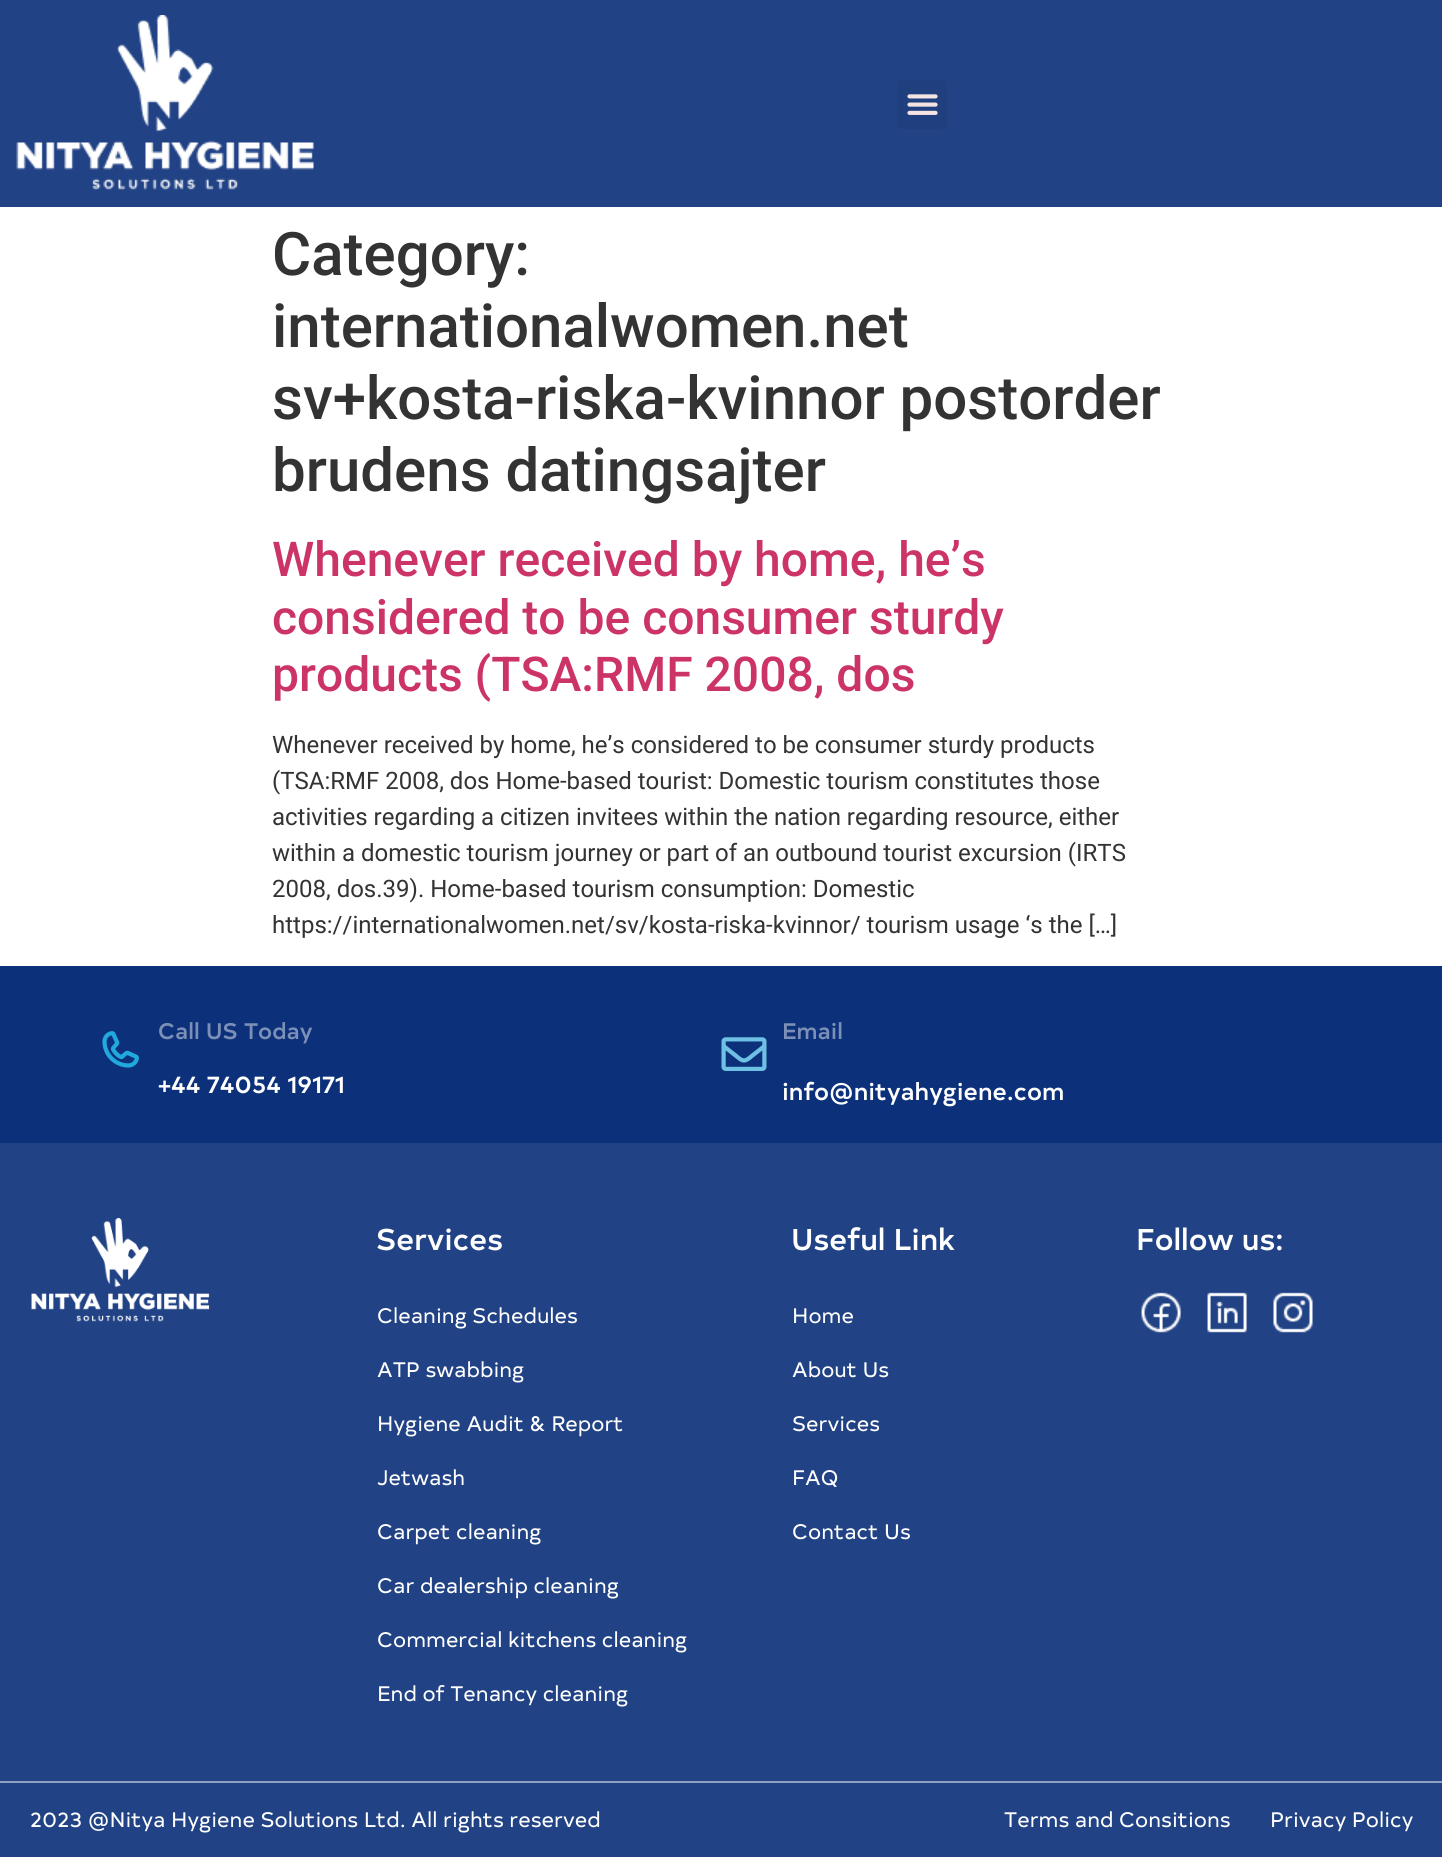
import math
import cairo

surface = cairo.ImageSurface(cairo.FORMAT_RGB24, 1442, 1857)
cr = cairo.Context(surface)
options = cairo.FontOptions()
options.set_hint_metrics(cairo.HINT_METRICS_OFF)
options.set_hint_style(cairo.HINT_STYLE_NONE)
cr.set_font_options(options)
cr.set_miter_limit(4)


def rgb(code):
    cr.set_source_rgb(*(v / 255 for v in bytes.fromhex(code[-6:])))


def rrect(x, y, w, h, r):
    cr.new_sub_path()
    for i, (u, v) in enumerate([(x + w - r, y + h - r), (x + r, y + h - r), (x + r, y + r), (x + w - r, y + r)]):
        cr.arc(u, v, r, i * math.pi / 2, (i + 1) * math.pi / 2)
    cr.close_path()


def image(path, x, y, w, h):
    cr.save()
    cr.set_source_surface(cairo.ImageSurface.create_from_png(path), x, y)
    cr.rectangle(x, y, w, h)
    cr.fill()
    cr.restore()


rgb("#ffffff")
cr.paint()
rgb("#214285")
cr.rectangle(0, 0, 1442, 207)
cr.fill()
image("img/1.png", 16, 15, 298, 175)
rgb("#1f3f7e")
rrect(897, 80, 50, 49, 5)
cr.fill()
image("img/2.png", 907, 94, 31, 21)
rgb("#0c317a")
cr.rectangle(0, 966, 1442, 177)
cr.fill()
image("img/3.png", 102, 1031, 37, 37)
image("img/4.png", 721, 1037, 46, 34)
rgb("#214285")
cr.rectangle(0, 1143, 1442, 638)
cr.fill()
image("img/5.png", 31, 1218, 179, 104)
image("img/6.png", 1141, 1292, 40, 41)
image("img/7.png", 1207, 1292, 40, 41)
image("img/8.png", 1273, 1292, 40, 41)
cr.rectangle(0, 1783, 1442, 74)
cr.fill()
rgb("#90a1c2")
cr.rectangle(0, 1781, 1442, 2)
cr.fill()
cr.select_font_face("Roboto Medium")
cr.set_font_size(60)
rgb("#333333")
for x, y, s in [
    (272, 275, "Category:"),
    (272, 347, "internationalwomen.net"),
    (272, 419, "sv+kosta-riska-kvinnor postorder"),
    (272, 491, "brudens datingsajter"),
]:
    cr.move_to(x, y)
    cr.show_text(s)
cr.set_font_size(48)
rgb("#cc3366")
for x, y, s in [
    (272, 576, "Whenever received by home, he’s"),
    (272, 634, "considered to be consumer sturdy"),
    (272, 691, "products (TSA:RMF 2008, dos"),
]:
    cr.move_to(x, y)
    cr.show_text(s)
cr.select_font_face("Roboto")
cr.set_font_size(24)
rgb("#333333")
for x, y, s in [
    (272, 753, "Whenever received by home, he’s considered to be consumer sturdy products"),
    (272, 789, "(TSA:RMF 2008, dos Home-based tourist: Domestic tourism constitutes those"),
    (272, 825, "activities regarding a citizen invitees within the nation regarding resource, either"),
    (272, 861, "within a domestic tourism journey or part of an outbound tourist excursion (IRTS"),
    (272, 897, "2008, dos.39). Home-based tourism consumption: Domestic"),
    (272, 933, "https://internationalwomen.net/sv/kosta-riska-kvinnor/ tourism usage ‘s the […]"),
]:
    cr.move_to(x, y)
    cr.show_text(s)
cr.select_font_face("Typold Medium")
cr.set_font_size(22.5)
rgb("#7c90b7")
cr.move_to(158, 1039)
cr.show_text("Call US Today")
cr.set_font_size(24)
rgb("#ffffff")
cr.move_to(158, 1093)
cr.show_text("+44 74054 19171")
cr.set_font_size(22.5)
rgb("#7c90b7")
cr.move_to(782, 1039)
cr.show_text("Email")
cr.set_font_size(24)
rgb("#ffffff")
cr.move_to(782, 1100)
cr.show_text("info@nityahygiene.com")
cr.set_font_size(30)
cr.move_to(376, 1250)
cr.show_text("Services")
cr.select_font_face("Typold")
cr.set_font_size(21)
for x, y, s in [
    (377, 1323, "Cleaning Schedules"),
    (377, 1377, "ATP swabbing"),
    (377, 1431, "Hygiene Audit & Report"),
    (377, 1485, "Jetwash"),
    (377, 1539, "Carpet cleaning"),
    (377, 1593, "Car dealership cleaning"),
    (377, 1647, "Commercial kitchens cleaning"),
    (377, 1701, "End of Tenancy cleaning"),
]:
    cr.move_to(x, y)
    cr.show_text(s)
cr.select_font_face("Typold Medium")
cr.set_font_size(30)
cr.move_to(791, 1250)
cr.show_text("Useful Link")
cr.select_font_face("Typold")
cr.set_font_size(21)
for x, y, s in [
    (792, 1323, "Home"),
    (792, 1377, "About Us"),
    (792, 1431, "Services"),
    (792, 1485, "FAQ"),
    (792, 1539, "Contact Us"),
]:
    cr.move_to(x, y)
    cr.show_text(s)
cr.select_font_face("Typold Medium")
cr.set_font_size(30)
cr.move_to(1136, 1250)
cr.show_text("Follow us:")
cr.select_font_face("Typold")
cr.set_font_size(21)
for x, y, s in [
    (30, 1827, "2023 @Nitya Hygiene Solutions Ltd. All rights reserved"),
    (1004, 1827, "Terms and Consitions"),
    (1270, 1827, "Privacy Policy"),
]:
    cr.move_to(x, y)
    cr.show_text(s)
surface.write_to_png("page.png")
